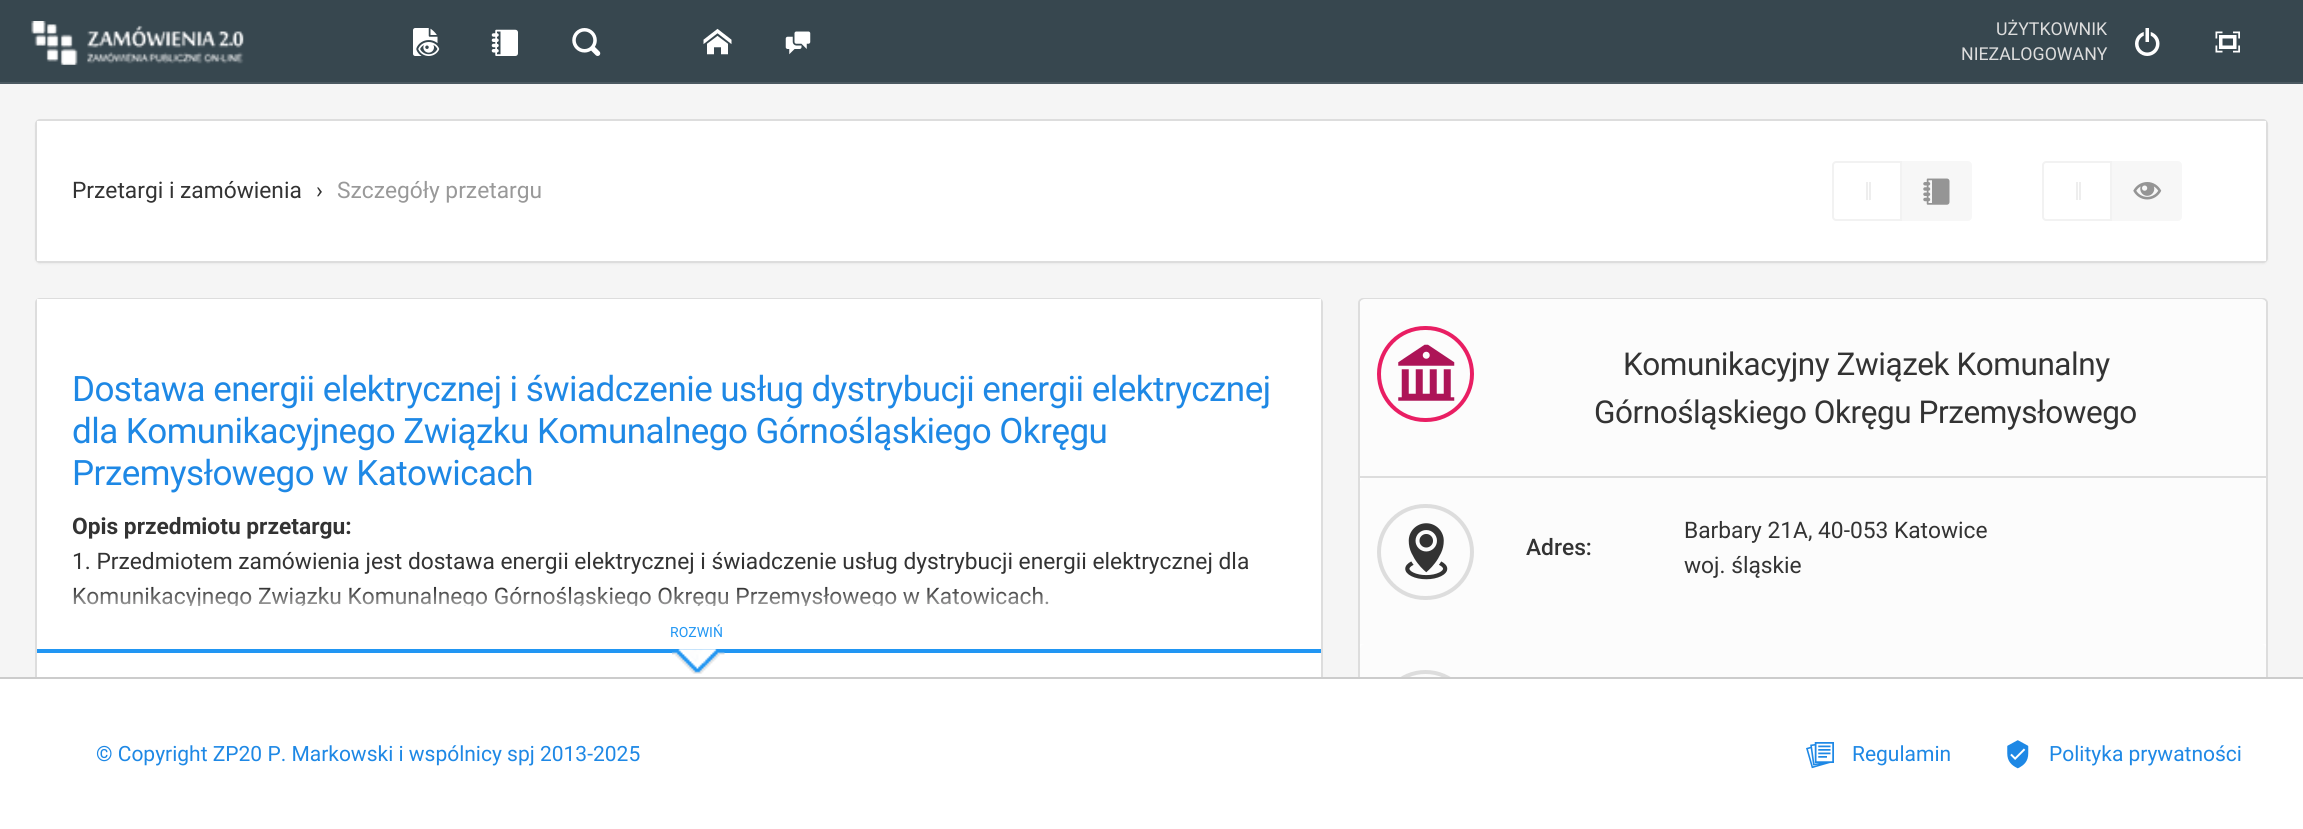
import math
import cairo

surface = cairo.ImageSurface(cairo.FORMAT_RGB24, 2303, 829)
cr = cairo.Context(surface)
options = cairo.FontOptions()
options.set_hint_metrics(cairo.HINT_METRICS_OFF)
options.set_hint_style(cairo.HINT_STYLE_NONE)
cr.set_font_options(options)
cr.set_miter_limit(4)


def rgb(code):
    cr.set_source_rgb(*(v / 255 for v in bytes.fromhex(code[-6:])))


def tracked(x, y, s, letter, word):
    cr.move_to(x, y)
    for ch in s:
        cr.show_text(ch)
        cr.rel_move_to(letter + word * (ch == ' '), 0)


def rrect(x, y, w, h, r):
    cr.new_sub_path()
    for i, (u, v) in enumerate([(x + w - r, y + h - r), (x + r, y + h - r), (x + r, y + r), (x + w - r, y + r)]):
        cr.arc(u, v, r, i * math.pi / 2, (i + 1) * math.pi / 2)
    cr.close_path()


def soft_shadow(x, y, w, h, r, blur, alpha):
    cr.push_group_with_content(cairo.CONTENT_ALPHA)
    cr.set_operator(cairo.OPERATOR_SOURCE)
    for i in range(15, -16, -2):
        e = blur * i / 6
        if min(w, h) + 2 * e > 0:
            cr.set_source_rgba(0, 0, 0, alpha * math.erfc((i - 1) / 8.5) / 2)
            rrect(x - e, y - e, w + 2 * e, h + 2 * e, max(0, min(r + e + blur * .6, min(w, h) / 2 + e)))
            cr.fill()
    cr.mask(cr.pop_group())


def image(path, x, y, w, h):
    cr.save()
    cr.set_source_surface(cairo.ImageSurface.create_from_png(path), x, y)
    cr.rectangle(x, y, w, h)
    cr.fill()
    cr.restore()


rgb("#f5f5f5")
cr.paint()
rgb("#37474f")
cr.rectangle(0, 0, 2303, 82)
cr.fill()
rgb("#4b5961")
cr.rectangle(0, 82, 2303, 2)
cr.fill()
image("img/1.png", 31, 21, 213, 44)
image("img/2.png", 413, 28, 27, 28)
image("img/3.png", 491, 29, 27, 27)
image("img/4.png", 572, 28, 29, 28)
image("img/5.png", 703, 28, 29, 27)
image("img/6.png", 785, 31, 26, 24)
image("img/7.png", 2135, 28, 25, 28)
image("img/8.png", 2215, 31, 25, 22)
rgb("#000000")
soft_shadow(35, 121, 2233, 143, 5, 1, 0.05)
rrect(36, 120, 2231, 142, 4)
rgb("#dddddd")
cr.stroke()
rgb("#ffffff")
cr.rectangle(37, 121, 2229, 140)
cr.fill()
cr.new_path()
cr.move_to(1836, 162)
cr.line_to(1901, 162)
cr.line_to(1901, 220)
cr.line_to(1836, 220)
cr.curve_to(1834.5, 220, 1833, 218.5, 1833, 217)
cr.line_to(1833, 165)
cr.curve_to(1833, 163.5, 1834.5, 162, 1836, 162)
cr.close_path()
rgb("#f2f2f2")
cr.stroke()
rgb("#eeeeee")
cr.rectangle(1869, 182, 2, 18)
cr.fill()
cr.rectangle(1866, 182, 2, 18)
cr.fill()
rgb("#f7f7f7")
cr.new_path()
cr.move_to(1902, 161)
cr.line_to(1968, 161)
cr.curve_to(1970, 161, 1972, 163, 1972, 165)
cr.line_to(1972, 217)
cr.curve_to(1972, 219, 1970, 221, 1968, 221)
cr.line_to(1902, 221)
cr.close_path()
cr.fill()
image("img/9.png", 1923, 178, 27, 27)
cr.new_path()
cr.move_to(2046, 162)
cr.line_to(2111, 162)
cr.line_to(2111, 220)
cr.line_to(2046, 220)
cr.curve_to(2044.5, 220, 2043, 218.5, 2043, 217)
cr.line_to(2043, 165)
cr.curve_to(2043, 163.5, 2044.5, 162, 2046, 162)
cr.close_path()
rgb("#f2f2f2")
cr.stroke()
rgb("#eeeeee")
cr.rectangle(2079, 182, 2, 18)
cr.fill()
cr.rectangle(2076, 182, 2, 18)
cr.fill()
rgb("#f7f7f7")
cr.new_path()
cr.move_to(2112, 161)
cr.line_to(2178, 161)
cr.curve_to(2180, 161, 2182, 163, 2182, 165)
cr.line_to(2182, 217)
cr.curve_to(2182, 219, 2180, 221, 2178, 221)
cr.line_to(2112, 221)
cr.close_path()
cr.fill()
image("img/10.png", 2133, 182, 29, 18)
rgb("#ffffff")
cr.new_path()
cr.move_to(40, 299)
cr.line_to(1318, 299)
cr.curve_to(1320, 299, 1321, 301, 1321, 303)
cr.line_to(1321, 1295)
cr.curve_to(1321, 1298, 1320, 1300, 1318, 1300)
cr.line_to(40, 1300)
cr.curve_to(38, 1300, 37, 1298, 37, 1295)
cr.line_to(37, 303)
cr.curve_to(37, 301, 38, 299, 40, 299)
cr.close_path()
cr.fill()
rgb("#dddddd")
cr.set_fill_rule(cairo.FILL_RULE_EVEN_ODD)
cr.new_path()
cr.move_to(40, 298)
cr.line_to(1318, 298)
cr.curve_to(1321, 298, 1323, 300, 1323, 303)
cr.line_to(1323, 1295)
cr.curve_to(1323, 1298, 1321, 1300, 1318, 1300)
cr.line_to(40, 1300)
cr.curve_to(37, 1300, 35, 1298, 35, 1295)
cr.line_to(35, 303)
cr.curve_to(35, 300, 37, 298, 40, 298)
cr.close_path()
cr.move_to(40, 299)
cr.line_to(1318, 299)
cr.curve_to(1320, 299, 1321, 301, 1321, 303)
cr.line_to(1321, 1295)
cr.curve_to(1321, 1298, 1320, 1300, 1318, 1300)
cr.line_to(40, 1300)
cr.curve_to(38, 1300, 37, 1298, 37, 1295)
cr.line_to(37, 303)
cr.curve_to(37, 301, 38, 299, 40, 299)
cr.close_path()
cr.fill()
rgb("#ffffff")
cr.rectangle(37, 299, 1284, 4)
cr.fill()
rgb("#2196f3")
cr.rectangle(37, 649, 1284, 4)
cr.fill()
image("img/12.png", 672, 649, 53, 25)
rgb("#ffffff")
rrect(1359, 299, 908, 519, 4)
cr.fill_preserve()
rgb("#dddddd")
cr.stroke()
rgb("#fcfcfc")
cr.new_path()
cr.move_to(1365, 299)
cr.line_to(2261, 299)
cr.curve_to(2264, 299, 2266, 301, 2266, 304)
cr.line_to(2266, 478)
cr.line_to(1360, 478)
cr.line_to(1360, 304)
cr.curve_to(1360, 301, 1362, 299, 1365, 299)
cr.close_path()
cr.fill()
rgb("#dddddd")
cr.rectangle(1360, 476, 906, 2)
cr.fill()
rrect(1379, 328, 93, 92, 46)
rgb("#e91e63")
cr.set_line_width(4)
cr.stroke()
image("img/13.png", 1398, 344, 57, 57)
rgb("#fcfcfc")
cr.new_path()
cr.move_to(1365, 478)
cr.line_to(2261, 478)
cr.curve_to(2264, 478, 2266, 480, 2266, 483)
cr.line_to(2266, 644)
cr.line_to(1360, 644)
cr.line_to(1360, 483)
cr.curve_to(1360, 480, 1362, 478, 1365, 478)
cr.close_path()
cr.fill()
rrect(1379, 506, 93, 92, 46)
rgb("#dddddd")
cr.stroke()
image("img/14.png", 1405, 523, 43, 57)
rgb("#fcfcfc")
cr.new_path()
cr.move_to(1365, 644)
cr.line_to(2261, 644)
cr.curve_to(2264, 644, 2266, 646, 2266, 649)
cr.line_to(2266, 817)
cr.line_to(1360, 817)
cr.line_to(1360, 649)
cr.curve_to(1360, 646, 1362, 644, 1365, 644)
cr.close_path()
cr.fill()
cr.arc(1425.5, 718.5, 46.5, 0, 2 * math.pi)
rgb("#dddddd")
cr.stroke()
rgb("#ffffff")
cr.rectangle(0, 679, 2303, 150)
cr.fill()
rgb("#cccccc")
cr.rectangle(0, 677, 2303, 2)
cr.fill()
image("img/15.png", 1806, 742, 28, 27)
image("img/16.png", 2007, 740, 22, 29)
cr.select_font_face("Roboto")
cr.set_font_size(17.75)
rgb("#dddddd")
cr.move_to(1996, 35)
cr.show_text("UŻYTKOWNIK")
cr.move_to(1961, 60)
cr.show_text("NIEZALOGOWANY")
cr.set_font_size(22.75)
rgb("#333333")
cr.move_to(72, 198)
cr.show_text("Przetargi i zamówienia")
cr.move_to(316, 198)
cr.show_text("›")
rgb("#999999")
cr.move_to(337, 198)
cr.show_text("Szczegóły przetargu")
cr.set_font_size(35)
rgb("#1e88e5")
for x, y, s in [
    (72, 401, "Dostawa energii elektrycznej i świadczenie usług dystrybucji energii elektrycznej"),
    (72, 443, "dla Komunikacyjnego Związku Komunalnego Górnośląskiego Okręgu"),
    (72, 485, "Przemysłowego w Katowicach"),
]:
    tracked(x, y, s, -0.53, 0)
cr.select_font_face("Roboto", cairo.FONT_SLANT_NORMAL, cairo.FONT_WEIGHT_BOLD)
cr.set_font_size(22.75)
rgb("#333333")
cr.move_to(72, 534)
cr.show_text("Opis przedmiotu przetargu:")
cr.select_font_face("Roboto")
cr.move_to(72, 569)
cr.show_text("1. Przedmiotem zamówienia jest dostawa energii elektrycznej i świadczenie usług dystrybucji energii elektrycznej dla")
cr.save()
cr.set_fill_rule(cairo.FILL_RULE_WINDING)
cr.rectangle(72, 509, 1214, 97)
cr.clip()
cr.move_to(72, 604)
cr.show_text("Komunikacyjnego Związku Komunalnego Górnośląskiego Okręgu Przemysłowego w Katowicach.")
cr.restore()
image("img/11.png", 73, 588, 975, 18)
cr.set_font_size(14)
rgb("#2196f3")
cr.move_to(670, 637)
cr.show_text("ROZWIŃ")
cr.set_font_size(31.5)
rgb("#333333")
tracked(1623, 375, "Komunikacyjny Związek Komunalny", -0.45, 0)
tracked(1594, 423, "Górnośląskiego Okręgu Przemysłowego", -0.45, 0)
cr.select_font_face("Roboto Medium")
cr.set_font_size(22.75)
cr.move_to(1526, 555)
cr.show_text("Adres:")
cr.select_font_face("Roboto")
cr.move_to(1684, 538)
cr.show_text("Barbary 21A, 40-053 Katowice")
cr.move_to(1684, 573)
cr.show_text("woj. śląskie")
cr.set_font_size(21)
rgb("#1e88e5")
for x, y, s in [
    (96, 761, "© Copyright ZP20 P. Markowski i wspólnicy spj 2013-2025"),
    (1852, 761, "Regulamin"),
    (2049, 761, "Polityka prywatności"),
]:
    cr.move_to(x, y)
    cr.show_text(s)
surface.write_to_png("page.png")
